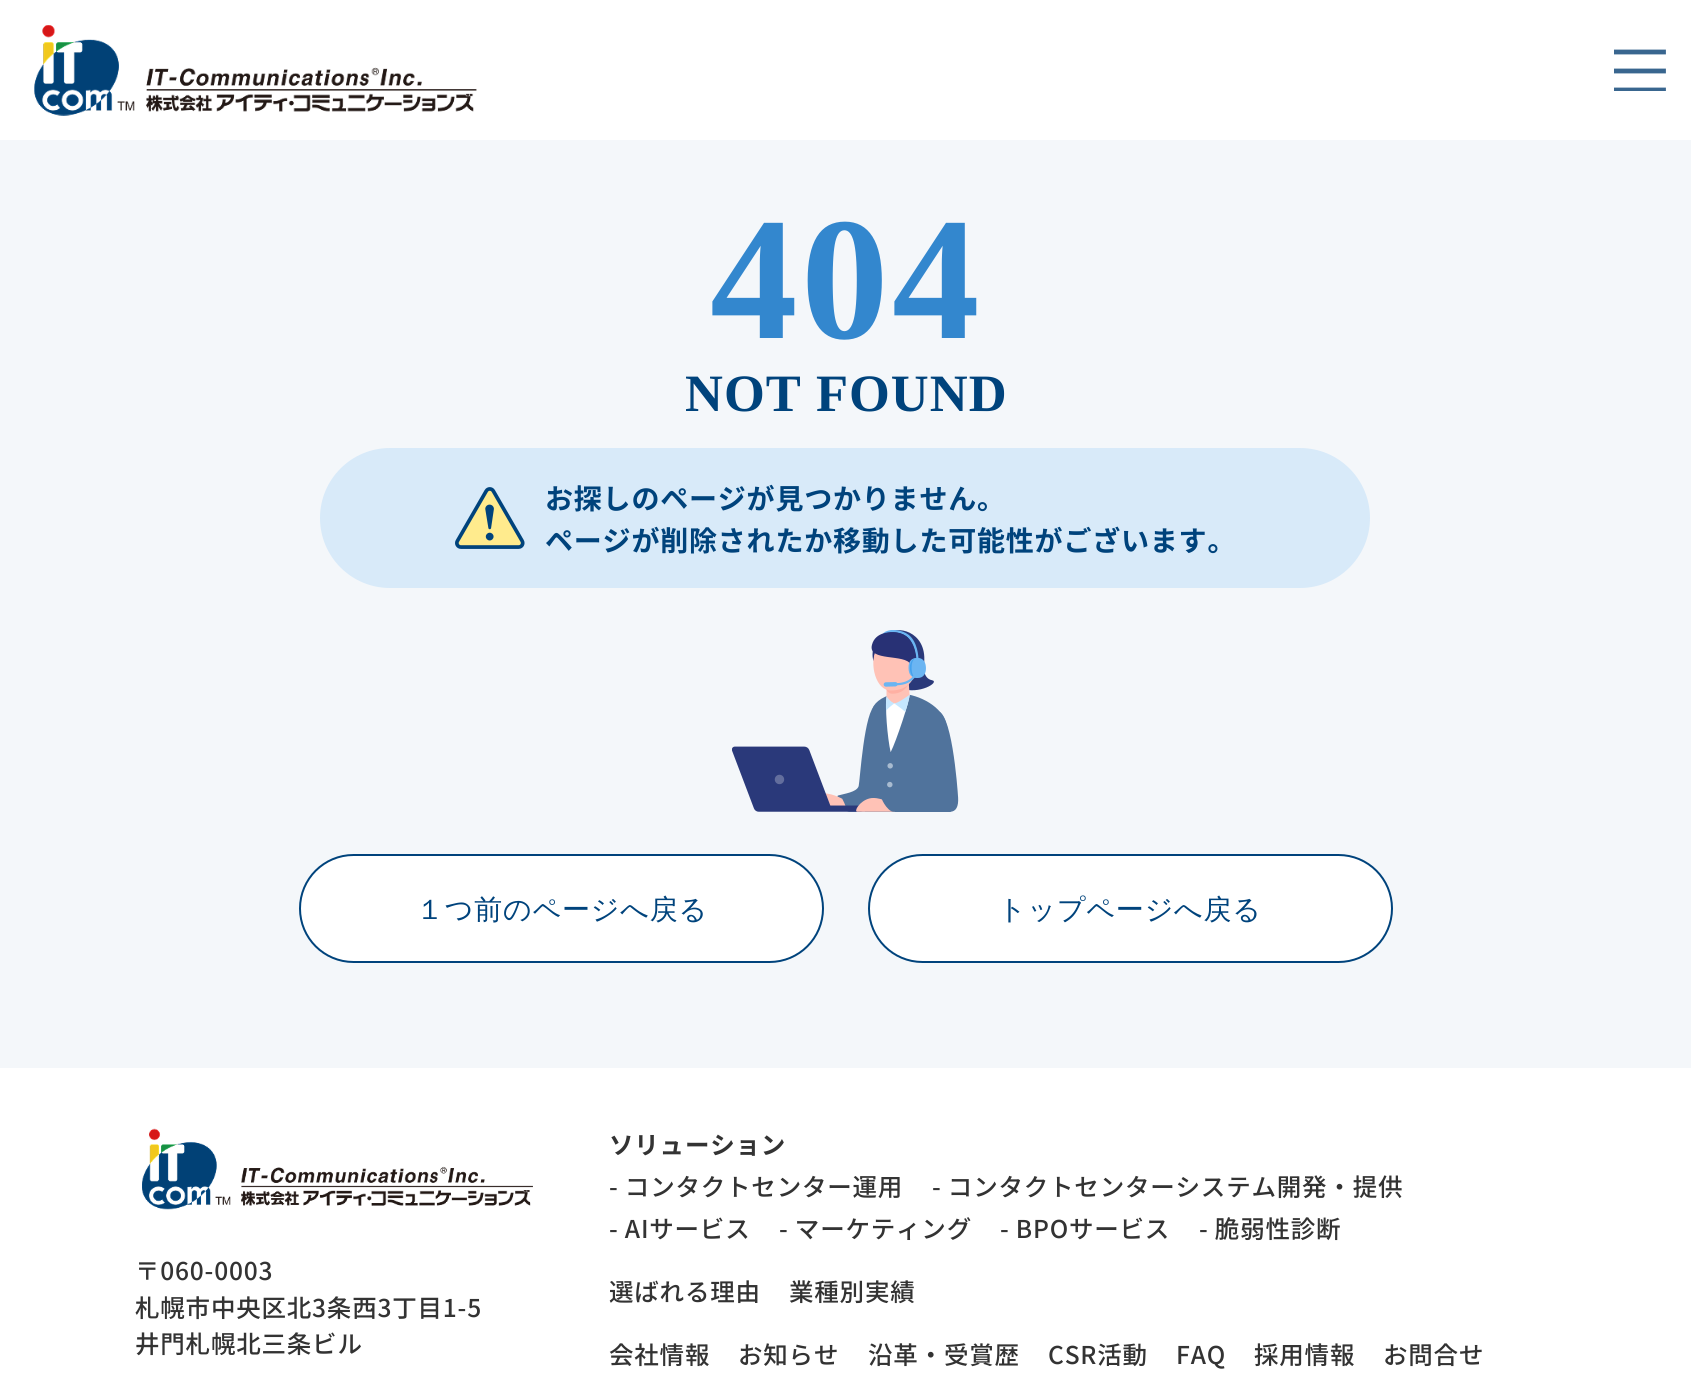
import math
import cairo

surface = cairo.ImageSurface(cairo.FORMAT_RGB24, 1691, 1378)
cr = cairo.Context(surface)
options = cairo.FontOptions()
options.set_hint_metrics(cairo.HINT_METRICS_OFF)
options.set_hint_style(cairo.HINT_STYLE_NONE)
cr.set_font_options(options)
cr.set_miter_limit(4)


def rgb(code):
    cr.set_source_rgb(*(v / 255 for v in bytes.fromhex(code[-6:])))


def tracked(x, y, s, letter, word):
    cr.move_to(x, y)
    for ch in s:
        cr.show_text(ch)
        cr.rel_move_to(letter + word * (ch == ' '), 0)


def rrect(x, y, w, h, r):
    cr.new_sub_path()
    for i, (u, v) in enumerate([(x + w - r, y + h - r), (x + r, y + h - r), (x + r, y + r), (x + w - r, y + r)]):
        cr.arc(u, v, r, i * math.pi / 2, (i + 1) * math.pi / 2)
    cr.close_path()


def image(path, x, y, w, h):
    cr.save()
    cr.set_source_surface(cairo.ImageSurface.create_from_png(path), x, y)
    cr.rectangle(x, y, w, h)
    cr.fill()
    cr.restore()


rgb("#ffffff")
cr.paint()
image("img/1.png", 34, 25, 443, 91)
cr.save()
cr.rectangle(1614, 49, 52, 42)
cr.clip()
cr.new_path()
cr.move_to(1616, 90)
cr.line_to(1663.5, 90)
cr.move_to(1616, 71)
cr.line_to(1663.5, 71)
cr.move_to(1616, 52)
cr.line_to(1663.5, 52)
rgb("#39668f")
cr.set_line_width(4.8)
cr.set_line_cap(cairo.LINE_CAP_SQUARE)
cr.stroke()
cr.restore()
rgb("#f4f7fa")
cr.rectangle(0, 140, 1691, 928)
cr.fill()
rgb("#d8eaf9")
rrect(320, 448, 1050, 140, 70)
cr.fill()
image("img/2.png", 455, 487, 70, 62)
image("img/3.png", 732, 630, 227, 182)
rgb("#ffffff")
rrect(300, 855, 523, 107, 53.5)
cr.fill_preserve()
rgb("#00437c")
cr.stroke()
rgb("#ffffff")
rrect(869, 855, 523, 107, 53.5)
cr.fill_preserve()
rgb("#00437c")
cr.stroke()
image("img/4.png", 142, 1128, 391, 82)
cr.select_font_face("Liberation Serif", cairo.FONT_SLANT_NORMAL, cairo.FONT_WEIGHT_BOLD)
cr.set_font_size(175)
rgb("#3387ce")
tracked(710, 338, "404", 3.5, 0)
cr.set_font_size(52.5)
rgb("#00437c")
tracked(685, 411, "NOT FOUND", 1, 0)
cr.select_font_face("Noto Sans JP", cairo.FONT_SLANT_NORMAL, cairo.FONT_WEIGHT_BOLD)
cr.set_font_size(28)
tracked(545, 509, "お探しのページが見つかりません。", 0.8, 0)
tracked(545, 551, "ページが削除されたか移動した可能性がございます。", 0.8, 0)
cr.select_font_face("WenQuanYi Zen Hei Medium")
tracked(416, 919, "１つ前のページへ戻る", 0.8, 0)
tracked(998, 919, "トップページへ戻る", 0.8, 0)
cr.select_font_face("Noto Sans JP Medium")
cr.set_font_size(24.5)
rgb("#333333")
for x, y, s in [
    (135, 1280, "〒060-0003"),
    (135, 1317, "札幌市中央区北3条西3丁目1-5"),
    (135, 1353, "井門札幌北三条ビル"),
]:
    tracked(x, y, s, 0.8, 0)
cr.select_font_face("Noto Sans JP", cairo.FONT_SLANT_NORMAL, cairo.FONT_WEIGHT_BOLD)
tracked(609, 1154, "ソリューション", 0.8, 0)
cr.select_font_face("Noto Sans JP Medium")
for x, y, s in [
    (609, 1196, "- コンタクトセンター運用"),
    (932, 1196, "- コンタクトセンターシステム開発・提供"),
    (609, 1238, "- AIサービス"),
    (779, 1238, "- マーケティング"),
    (1000, 1238, "- BPOサービス"),
    (1199, 1238, "- 脆弱性診断"),
    (609, 1301, "選ばれる理由"),
    (789, 1301, "業種別実績"),
    (609, 1364, "会社情報"),
    (738, 1364, "お知らせ"),
    (868, 1364, "沿革・受賞歴"),
    (1048, 1364, "CSR活動"),
    (1176, 1364, "FAQ"),
    (1254, 1364, "採用情報"),
    (1383, 1364, "お問合せ"),
]:
    tracked(x, y, s, 0.8, 0)
surface.write_to_png("page.png")
